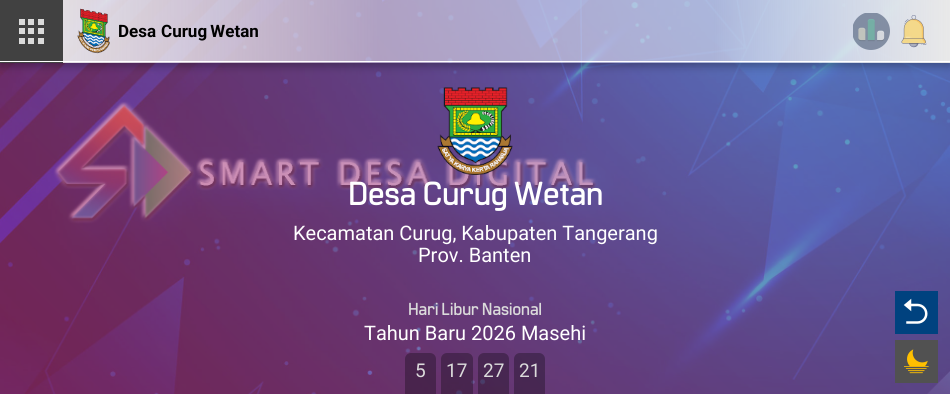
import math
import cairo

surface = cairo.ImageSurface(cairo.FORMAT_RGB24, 950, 394)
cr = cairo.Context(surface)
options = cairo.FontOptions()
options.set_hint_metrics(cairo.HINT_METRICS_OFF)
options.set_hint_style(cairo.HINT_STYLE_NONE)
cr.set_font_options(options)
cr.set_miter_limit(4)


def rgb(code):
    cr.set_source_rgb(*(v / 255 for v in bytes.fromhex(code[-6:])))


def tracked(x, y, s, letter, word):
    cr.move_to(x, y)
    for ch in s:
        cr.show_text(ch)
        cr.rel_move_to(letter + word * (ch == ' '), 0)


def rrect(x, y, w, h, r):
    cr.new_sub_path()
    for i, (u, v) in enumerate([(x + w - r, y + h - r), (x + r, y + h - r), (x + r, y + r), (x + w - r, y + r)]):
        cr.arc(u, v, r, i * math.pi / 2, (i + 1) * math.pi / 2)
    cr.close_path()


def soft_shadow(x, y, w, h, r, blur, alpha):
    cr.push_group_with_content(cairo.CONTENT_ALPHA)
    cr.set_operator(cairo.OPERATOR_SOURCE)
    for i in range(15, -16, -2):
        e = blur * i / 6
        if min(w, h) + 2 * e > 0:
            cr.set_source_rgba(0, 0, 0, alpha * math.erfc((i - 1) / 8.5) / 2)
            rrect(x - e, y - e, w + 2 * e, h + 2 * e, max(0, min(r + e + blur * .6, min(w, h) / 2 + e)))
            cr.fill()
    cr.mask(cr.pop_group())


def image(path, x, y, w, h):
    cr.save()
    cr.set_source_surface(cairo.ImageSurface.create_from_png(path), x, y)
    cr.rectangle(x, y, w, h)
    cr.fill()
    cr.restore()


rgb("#ffffff")
cr.paint()
image("img/5.png", 0, 0, 950, 394)
cr.save()
cr.set_fill_rule(cairo.FILL_RULE_EVEN_ODD)
cr.new_path()
cr.move_to(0, 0)
cr.line_to(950, 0)
cr.line_to(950, 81)
cr.line_to(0, 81)
cr.close_path()
cr.move_to(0, 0)
cr.line_to(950, 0)
cr.line_to(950, 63)
cr.line_to(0, 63)
cr.close_path()
cr.clip()
rgb("#000000")
soft_shadow(0, 4, 950, 62, 0, 4.5, 0.3)
cr.restore()
gradient = cairo.LinearGradient(0, 31, 950, 31)
gradient.add_color_stop_rgba(0, 0.914, 0.914, 0.914, 1)
gradient.add_color_stop_rgba(0.4, 1, 1, 1, 0.5)
gradient.add_color_stop_rgba(0.75, 1, 1, 1, 0.5)
gradient.add_color_stop_rgba(1, 0.914, 0.914, 0.914, 1)
cr.set_source(gradient)
cr.rectangle(63, 0, 887, 63)
cr.fill()
for x, y, w, h, color in [
    (63, 61, 887, 1, "#ffffff"),
    (0, 0, 63, 63, "#414141"),
    (0, 61, 63, 1, "#ffffff"),
]:
    rgb(color)
    cr.rectangle(x, y, w, h)
    cr.fill()
image("img/1.png", 19, 19, 25, 25)
image("img/2.png", 77, 8, 33, 46)
image("img/3.png", 853, 13, 37, 37)
image("img/4.png", 901, 15, 26, 33)
image("img/6.png", 437, 87, 76, 88)
cr.set_source_rgba(0, 0, 0, 0.3)
rrect(405, 353, 31, 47, 6)
cr.fill()
rrect(441, 353, 32, 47, 6)
cr.fill()
rrect(478, 353, 31, 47, 6)
cr.fill()
rrect(514, 353, 31, 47, 6)
cr.fill()
rgb("#00427f")
cr.rectangle(895, 291, 43, 43)
cr.fill()
image("img/7.png", 903, 298, 25, 26)
rgb("#515151")
cr.rectangle(895, 340, 43, 43)
cr.fill()
image("img/8.png", 904, 349, 25, 25)
cr.select_font_face("Roboto", cairo.FONT_SLANT_NORMAL, cairo.FONT_WEIGHT_BOLD)
cr.set_font_size(17)
rgb("#000000")
cr.move_to(118, 37)
cr.show_text("Desa")
tracked(161, 37, "Curug Wetan", 0, -1)
cr.select_font_face("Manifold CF", cairo.FONT_SLANT_NORMAL, cairo.FONT_WEIGHT_BOLD)
cr.set_font_size(32)
rgb("#ffffff")
cr.move_to(348, 205)
cr.show_text("Desa Curug Wetan")
cr.select_font_face("Roboto")
cr.set_font_size(20)
cr.move_to(293, 240)
cr.show_text("Kecamatan Curug, Kabupaten Tangerang")
cr.move_to(418, 262)
cr.show_text("Prov. Banten")
cr.select_font_face("Manifold CF", cairo.FONT_SLANT_NORMAL, cairo.FONT_WEIGHT_BOLD)
cr.set_font_size(16.75)
rgb("#dbdbdb")
cr.move_to(408, 315)
cr.show_text("Hari Libur Nasional")
cr.select_font_face("Roboto")
cr.set_font_size(20)
rgb("#ffffff")
cr.move_to(364, 340)
cr.show_text("Tahun Baru 2026 Masehi")
cr.set_font_size(19)
rgb("#dbdbdb")
for x, y, s in [
    (415, 377, "5"),
    (446, 377, "17"),
    (483, 377, "27"),
    (519, 377, "21"),
]:
    cr.move_to(x, y)
    cr.show_text(s)
surface.write_to_png("page.png")
